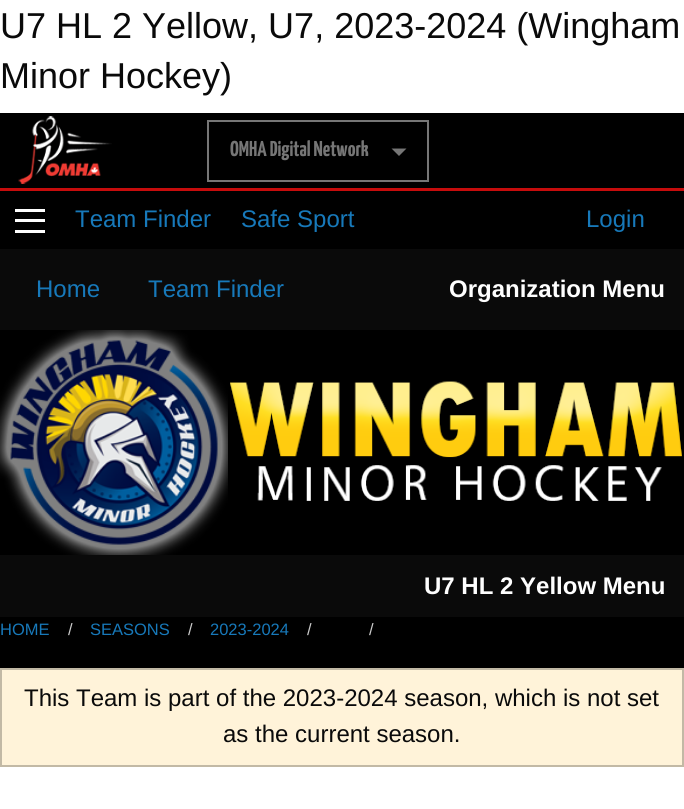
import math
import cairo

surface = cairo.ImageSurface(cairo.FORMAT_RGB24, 684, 809)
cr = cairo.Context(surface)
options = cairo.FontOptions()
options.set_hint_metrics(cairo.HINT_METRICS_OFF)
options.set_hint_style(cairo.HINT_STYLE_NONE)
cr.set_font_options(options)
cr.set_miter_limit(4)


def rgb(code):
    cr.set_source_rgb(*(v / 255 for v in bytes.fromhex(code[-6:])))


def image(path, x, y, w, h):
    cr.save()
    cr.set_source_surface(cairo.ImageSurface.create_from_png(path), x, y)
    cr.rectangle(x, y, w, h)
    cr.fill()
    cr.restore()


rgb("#ffffff")
cr.paint()
rgb("#000000")
cr.rectangle(0, 113, 684, 75)
cr.fill()
rgb("#c60c0c")
cr.rectangle(0, 188, 684, 3)
cr.fill()
image("img/1.png", 18, 116, 94, 68)
cr.rectangle(208, 121, 220, 60)
rgb("#767676")
cr.stroke()
cr.new_path()
cr.move_to(391.5, 148.5)
cr.line_to(406.5, 148.5)
cr.line_to(399, 156)
cr.close_path()
cr.fill()
for x, y, w, h, color in [
    (0, 191, 684, 477, "#000000"),
    (15, 230, 30, 3, "#fefefe"),
    (15, 219, 30, 3, "#fefefe"),
    (15, 209, 30, 3, "#fefefe"),
    (0, 249, 684, 81, "#0a0a0a"),
]:
    rgb(color)
    cr.rectangle(x, y, w, h)
    cr.fill()
image("img/2.png", 0, 330, 228, 225)
image("img/3.png", 230, 381, 452, 120)
cr.rectangle(0, 555, 684, 62)
cr.fill()
rgb("#fff3d9")
cr.rectangle(1, 669, 682, 97)
cr.fill_preserve()
rgb("#c2b9a5")
cr.stroke()
cr.select_font_face("Liberation Sans")
cr.set_font_size(36)
rgb("#0a0a0a")
cr.move_to(0, 38)
cr.show_text("U7 HL 2 Yellow, U7, 2023-2024 (Wingham")
cr.move_to(0, 88)
cr.show_text("Minor Hockey)")
cr.select_font_face("Yanone Kaffeesatz ExtraLight")
cr.set_font_size(21.5)
rgb("#767676")
cr.move_to(230, 156)
cr.show_text("OMHA Digital Network")
cr.select_font_face("Liberation Sans")
cr.set_font_size(24)
rgb("#1779ba")
for x, y, s in [
    (75, 227, "Team Finder"),
    (241, 227, "Safe Sport"),
    (586, 227, "Login"),
    (36, 297, "Home"),
    (148, 297, "Team Finder"),
]:
    cr.move_to(x, y)
    cr.show_text(s)
cr.select_font_face("Liberation Sans", cairo.FONT_SLANT_NORMAL, cairo.FONT_WEIGHT_BOLD)
rgb("#fefefe")
cr.move_to(449, 297)
cr.show_text("Organization Menu")
cr.move_to(424, 594)
cr.show_text("U7 HL 2 Yellow Menu")
cr.select_font_face("Liberation Sans")
cr.set_font_size(16.5)
rgb("#1779ba")
cr.move_to(0, 635)
cr.show_text("HOME")
rgb("#cacaca")
cr.move_to(68, 635)
cr.show_text("/")
rgb("#1779ba")
cr.move_to(90, 635)
cr.show_text("SEASONS")
rgb("#cacaca")
cr.move_to(188, 635)
cr.show_text("/")
rgb("#1779ba")
cr.move_to(210, 635)
cr.show_text("2023-2024")
rgb("#cacaca")
cr.move_to(307, 635)
cr.show_text("/")
cr.move_to(369, 635)
cr.show_text("/")
cr.set_font_size(24)
rgb("#0a0a0a")
cr.move_to(24, 706)
cr.show_text("This Team is part of the 2023-2024 season, which is not set")
cr.move_to(223, 742)
cr.show_text("as the current season.")
surface.write_to_png("page.png")
